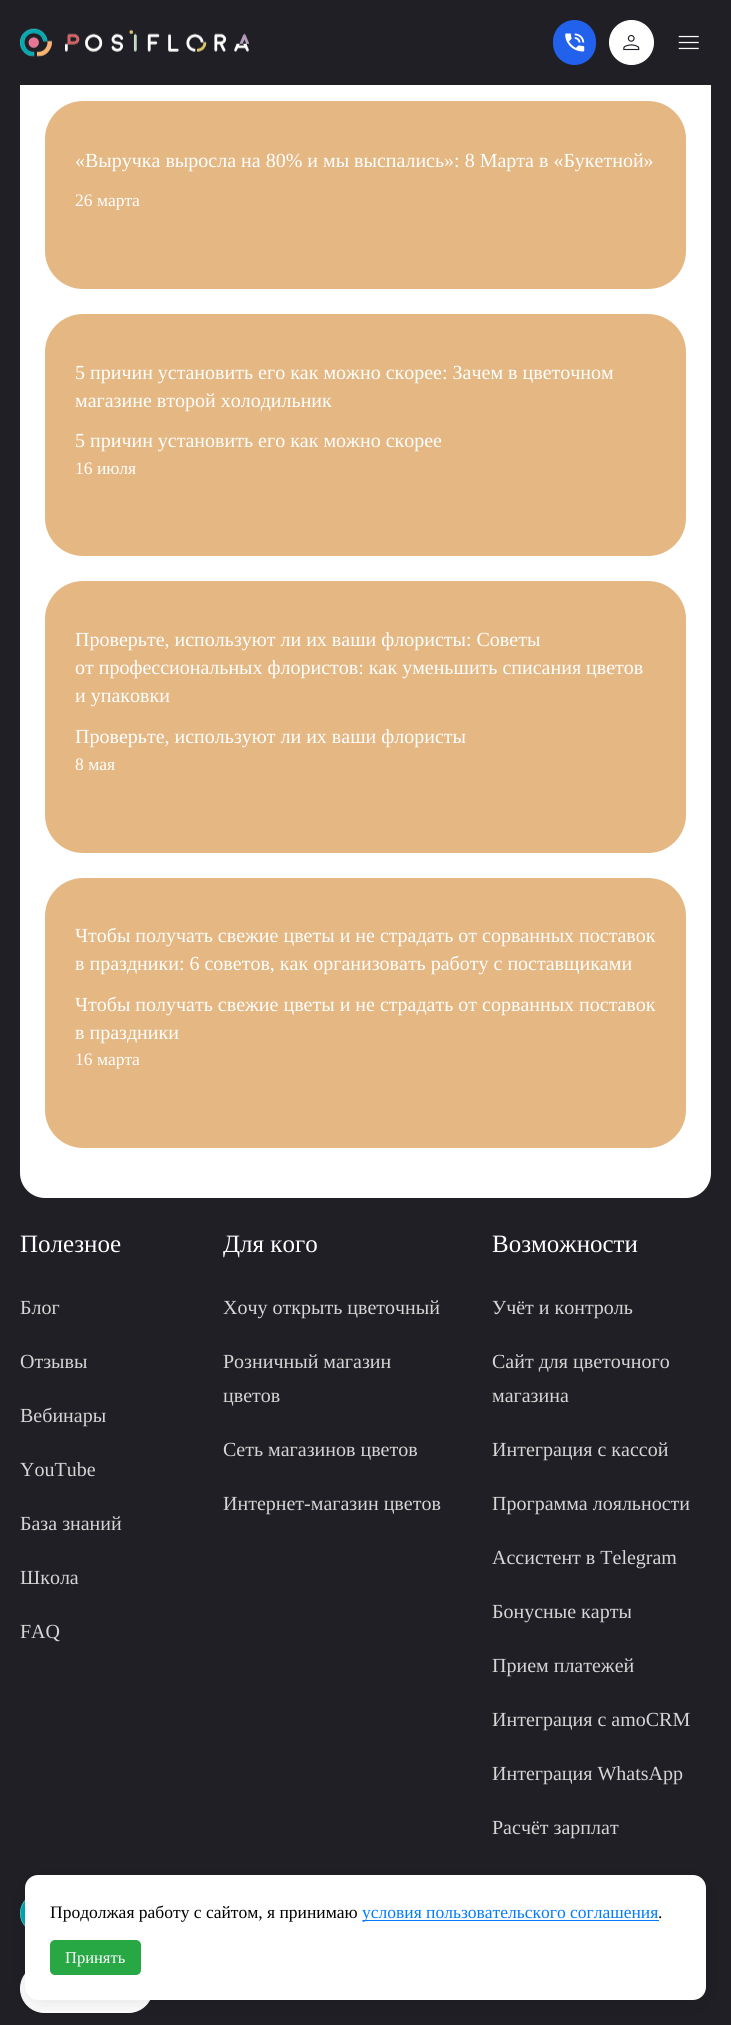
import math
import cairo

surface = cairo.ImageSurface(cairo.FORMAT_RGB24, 731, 2025)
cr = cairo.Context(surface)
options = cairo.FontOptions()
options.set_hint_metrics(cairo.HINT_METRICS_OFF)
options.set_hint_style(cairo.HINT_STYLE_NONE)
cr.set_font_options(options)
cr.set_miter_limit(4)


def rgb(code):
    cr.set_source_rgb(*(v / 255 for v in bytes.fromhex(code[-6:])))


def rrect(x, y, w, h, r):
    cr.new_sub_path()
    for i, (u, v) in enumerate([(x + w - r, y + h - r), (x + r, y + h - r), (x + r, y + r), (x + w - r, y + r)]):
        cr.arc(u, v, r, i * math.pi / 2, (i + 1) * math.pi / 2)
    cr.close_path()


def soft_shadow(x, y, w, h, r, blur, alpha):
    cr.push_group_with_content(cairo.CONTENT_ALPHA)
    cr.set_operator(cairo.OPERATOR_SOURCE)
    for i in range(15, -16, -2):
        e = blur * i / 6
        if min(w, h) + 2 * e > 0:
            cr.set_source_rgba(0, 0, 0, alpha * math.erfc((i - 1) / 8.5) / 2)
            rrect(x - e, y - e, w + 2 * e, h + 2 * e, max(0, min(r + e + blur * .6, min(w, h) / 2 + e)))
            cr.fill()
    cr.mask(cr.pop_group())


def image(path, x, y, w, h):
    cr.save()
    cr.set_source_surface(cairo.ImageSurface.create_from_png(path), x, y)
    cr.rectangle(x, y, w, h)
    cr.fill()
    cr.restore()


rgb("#1f1f25")
cr.paint()
rgb("#ffffff")
rrect(20, -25, 691, 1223, 25)
cr.fill()
rgb("#1f1f25")
cr.rectangle(20, 0, 691, 85)
cr.fill()
image("img/1.png", 20, 28, 229, 29)
rgb("#2261eb")
rrect(553, 20, 43, 45, 21.5)
cr.fill()
image("img/2.png", 565, 33, 20, 19)
rgb("#ffffff")
cr.arc(631.5, 42.5, 22, 0, 2 * math.pi)
cr.fill_preserve()
cr.set_line_width(1)
cr.stroke()
image("img/3.png", 623, 34, 17, 17)
image("img/4.png", 678, 35, 21, 15)
rgb("#e4b783")
rrect(45, 101, 641, 188, 38)
cr.fill()
rrect(45, 314, 641, 242, 38)
cr.fill()
rrect(45, 581, 641, 272, 38)
cr.fill()
rrect(45, 878, 641, 270, 38)
cr.fill()
image("img/5.png", 20, 1900, 5, 27)
rgb("#ffffff")
rrect(20.5, 1964.5, 132, 48, 24)
cr.fill_preserve()
cr.stroke()
rgb("#000000")
soft_shadow(25, 1880, 681, 125, 13, 12.5, 0.1)
rgb("#ffffff")
rrect(25, 1875, 681, 125, 13)
cr.fill()
rgb("#007bff")
cr.rectangle(363, 1920, 296, 1)
cr.fill()
rgb("#28a745")
rrect(50, 1940, 91, 35, 5)
cr.fill()
cr.select_font_face("Liberation Serif")
cr.set_font_size(20)
rgb("#ffffff")
cr.move_to(75, 167)
cr.show_text("«Выручка выросла на 80% и мы выспались»: 8 Марта в «Букетной»")
cr.set_font_size(17.5)
cr.move_to(75, 206)
cr.show_text("26 марта")
cr.set_font_size(20)
for x, y, s in [
    (75, 379, "5 причин установить его как можно скорее: Зачем в цветочном"),
    (75, 407, "магазине второй холодильник"),
    (75, 447, "5 причин установить его как можно скорее"),
]:
    cr.move_to(x, y)
    cr.show_text(s)
cr.set_font_size(17.5)
cr.move_to(75, 474)
cr.show_text("16 июля")
cr.set_font_size(20)
for x, y, s in [
    (75, 646, "Проверьте, используют ли их ваши флористы: Советы"),
    (75, 674, "от профессиональных флористов: как уменьшить списания цветов"),
    (75, 702, "и упаковки"),
    (75, 743, "Проверьте, используют ли их ваши флористы"),
]:
    cr.move_to(x, y)
    cr.show_text(s)
cr.set_font_size(17.5)
cr.move_to(75, 770)
cr.show_text("8 мая")
cr.set_font_size(20)
for x, y, s in [
    (75, 942, "Чтобы получать свежие цветы и не страдать от сорванных поставок"),
    (75, 970, "в праздники: 6 советов, как организовать работу с поставщиками"),
    (75, 1011, "Чтобы получать свежие цветы и не страдать от сорванных поставок"),
    (75, 1039, "в праздники"),
]:
    cr.move_to(x, y)
    cr.show_text(s)
cr.set_font_size(17.5)
cr.move_to(75, 1065)
cr.show_text("16 марта")
cr.set_font_size(25)
cr.move_to(20, 1252)
cr.show_text("Полезное")
cr.set_font_size(20)
rgb("#d5d5d5")
for x, y, s in [
    (20, 1314, "Блог"),
    (20, 1368, "Отзывы"),
    (20, 1422, "Вебинары"),
    (20, 1476, "YouTube"),
    (20, 1530, "База знаний"),
    (20, 1584, "Школа"),
    (20, 1638, "FAQ"),
]:
    cr.move_to(x, y)
    cr.show_text(s)
cr.set_font_size(25)
rgb("#ffffff")
cr.move_to(223, 1252)
cr.show_text("Для кого")
cr.set_font_size(20)
rgb("#d5d5d5")
for x, y, s in [
    (223, 1314, "Хочу открыть цветочный"),
    (223, 1368, "Розничный магазин"),
    (223, 1402, "цветов"),
    (223, 1456, "Сеть магазинов цветов"),
    (223, 1510, "Интернет-магазин цветов"),
]:
    cr.move_to(x, y)
    cr.show_text(s)
cr.set_font_size(25)
rgb("#ffffff")
cr.move_to(492, 1252)
cr.show_text("Возможности")
cr.set_font_size(20)
rgb("#d5d5d5")
for x, y, s in [
    (492, 1314, "Учёт и контроль"),
    (492, 1368, "Сайт для цветочного"),
    (492, 1402, "магазина"),
    (492, 1456, "Интеграция с кассой"),
    (492, 1510, "Программа лояльности"),
    (492, 1564, "Ассистент в Telegram"),
    (492, 1618, "Бонусные карты"),
    (492, 1672, "Прием платежей"),
    (492, 1726, "Интеграция с amoCRM"),
    (492, 1780, "Интеграция WhatsApp"),
    (492, 1834, "Расчёт зарплат"),
]:
    cr.move_to(x, y)
    cr.show_text(s)
cr.set_font_size(17.5)
rgb("#000000")
cr.move_to(50, 1918)
cr.show_text("Продолжая работу с сайтом, я принимаю")
rgb("#007bff")
cr.move_to(362, 1918)
cr.show_text("условия пользовательского соглашения")
rgb("#000000")
cr.move_to(658, 1918)
cr.show_text(".")
cr.set_font_size(16.5)
rgb("#ffffff")
cr.move_to(65, 1963)
cr.show_text("Принять")
surface.write_to_png("page.png")
